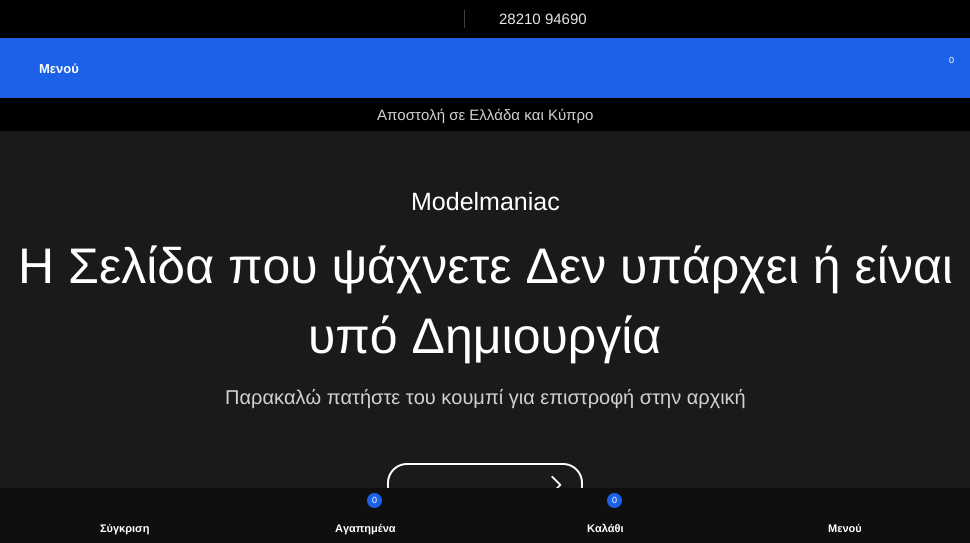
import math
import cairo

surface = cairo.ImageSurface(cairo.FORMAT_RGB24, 970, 543)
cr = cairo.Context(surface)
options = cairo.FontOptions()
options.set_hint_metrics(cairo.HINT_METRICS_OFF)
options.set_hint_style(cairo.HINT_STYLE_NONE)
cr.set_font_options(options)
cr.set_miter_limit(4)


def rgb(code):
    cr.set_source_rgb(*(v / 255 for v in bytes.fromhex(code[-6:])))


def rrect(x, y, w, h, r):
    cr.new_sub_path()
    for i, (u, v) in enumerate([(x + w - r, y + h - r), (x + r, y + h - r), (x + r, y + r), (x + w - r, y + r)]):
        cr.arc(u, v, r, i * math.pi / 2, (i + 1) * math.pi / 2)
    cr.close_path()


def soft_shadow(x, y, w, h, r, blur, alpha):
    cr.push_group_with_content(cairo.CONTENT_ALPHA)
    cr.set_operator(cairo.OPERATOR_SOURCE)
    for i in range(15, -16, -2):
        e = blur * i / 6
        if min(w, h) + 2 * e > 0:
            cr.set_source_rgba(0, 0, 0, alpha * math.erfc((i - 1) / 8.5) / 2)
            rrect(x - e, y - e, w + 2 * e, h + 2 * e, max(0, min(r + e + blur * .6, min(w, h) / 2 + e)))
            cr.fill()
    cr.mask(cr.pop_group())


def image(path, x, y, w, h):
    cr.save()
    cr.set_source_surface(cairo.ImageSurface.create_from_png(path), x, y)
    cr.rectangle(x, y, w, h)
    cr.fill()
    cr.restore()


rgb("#1a1a1a")
cr.paint()
for x, y, w, h, color in [
    (0, 0, 970, 38, "#000000"),
    (464, 10, 1, 18, "#404040"),
    (0, 38, 970, 60, "#1c61e7"),
    (0, 98, 970, 33, "#000000"),
]:
    rgb(color)
    cr.rectangle(x, y, w, h)
    cr.fill()
rrect(388, 464, 194, 42, 19)
rgb("#ffffff")
cr.stroke()
image("img/1.png", 551, 475, 11, 13)
rgb("#000000")
soft_shadow(0, 488, 970, 55, 0, 4.5, 0.12)
rgb("#0f0f0f")
cr.rectangle(0, 488, 970, 55)
cr.fill()
rgb("#1c61e7")
cr.arc(374.5, 500.5, 7.5, 0, 2 * math.pi)
cr.fill()
cr.arc(614.5, 500.5, 7.5, 0, 2 * math.pi)
cr.fill()
cr.select_font_face("Liberation Sans")
cr.set_font_size(15)
rgb("#e6e6e6")
cr.move_to(499, 24)
cr.show_text("28210 94690")
cr.set_font_size(9)
rgb("#ffffff")
cr.move_to(949, 63)
cr.show_text("0")
cr.select_font_face("Liberation Sans", cairo.FONT_SLANT_NORMAL, cairo.FONT_WEIGHT_BOLD)
cr.set_font_size(13)
cr.move_to(39, 73)
cr.show_text("Μενού")
cr.select_font_face("Liberation Sans")
cr.set_font_size(15)
rgb("#d1d1d1")
cr.move_to(377, 120)
cr.show_text("Αποστολή σε Ελλάδα και Κύπρο")
cr.set_font_size(25)
rgb("#ffffff")
cr.move_to(411, 210)
cr.show_text("Modelmaniac")
cr.set_font_size(50)
cr.move_to(18, 283)
cr.show_text("Η Σελίδα που ψάχνετε Δεν υπάρχει ή είναι")
cr.move_to(308, 353)
cr.show_text("υπό Δημιουργία")
cr.set_font_size(20)
rgb("#d1d1d1")
cr.move_to(225, 404)
cr.show_text("Παρακαλώ πατήστε του κουμπί για επιστροφή στην αρχική")
cr.select_font_face("Liberation Sans", cairo.FONT_SLANT_NORMAL, cairo.FONT_WEIGHT_BOLD)
cr.set_font_size(11)
rgb("#ffffff")
cr.move_to(100, 532)
cr.show_text("Σύγκριση")
cr.select_font_face("Liberation Sans")
cr.set_font_size(9)
cr.move_to(372, 503)
cr.show_text("0")
cr.select_font_face("Liberation Sans", cairo.FONT_SLANT_NORMAL, cairo.FONT_WEIGHT_BOLD)
cr.set_font_size(11)
cr.move_to(335, 532)
cr.show_text("Αγαπημένα")
cr.select_font_face("Liberation Sans")
cr.set_font_size(9)
cr.move_to(612, 503)
cr.show_text("0")
cr.select_font_face("Liberation Sans", cairo.FONT_SLANT_NORMAL, cairo.FONT_WEIGHT_BOLD)
cr.set_font_size(11)
cr.move_to(587, 532)
cr.show_text("Καλάθι")
cr.move_to(828, 532)
cr.show_text("Μενού")
surface.write_to_png("page.png")
